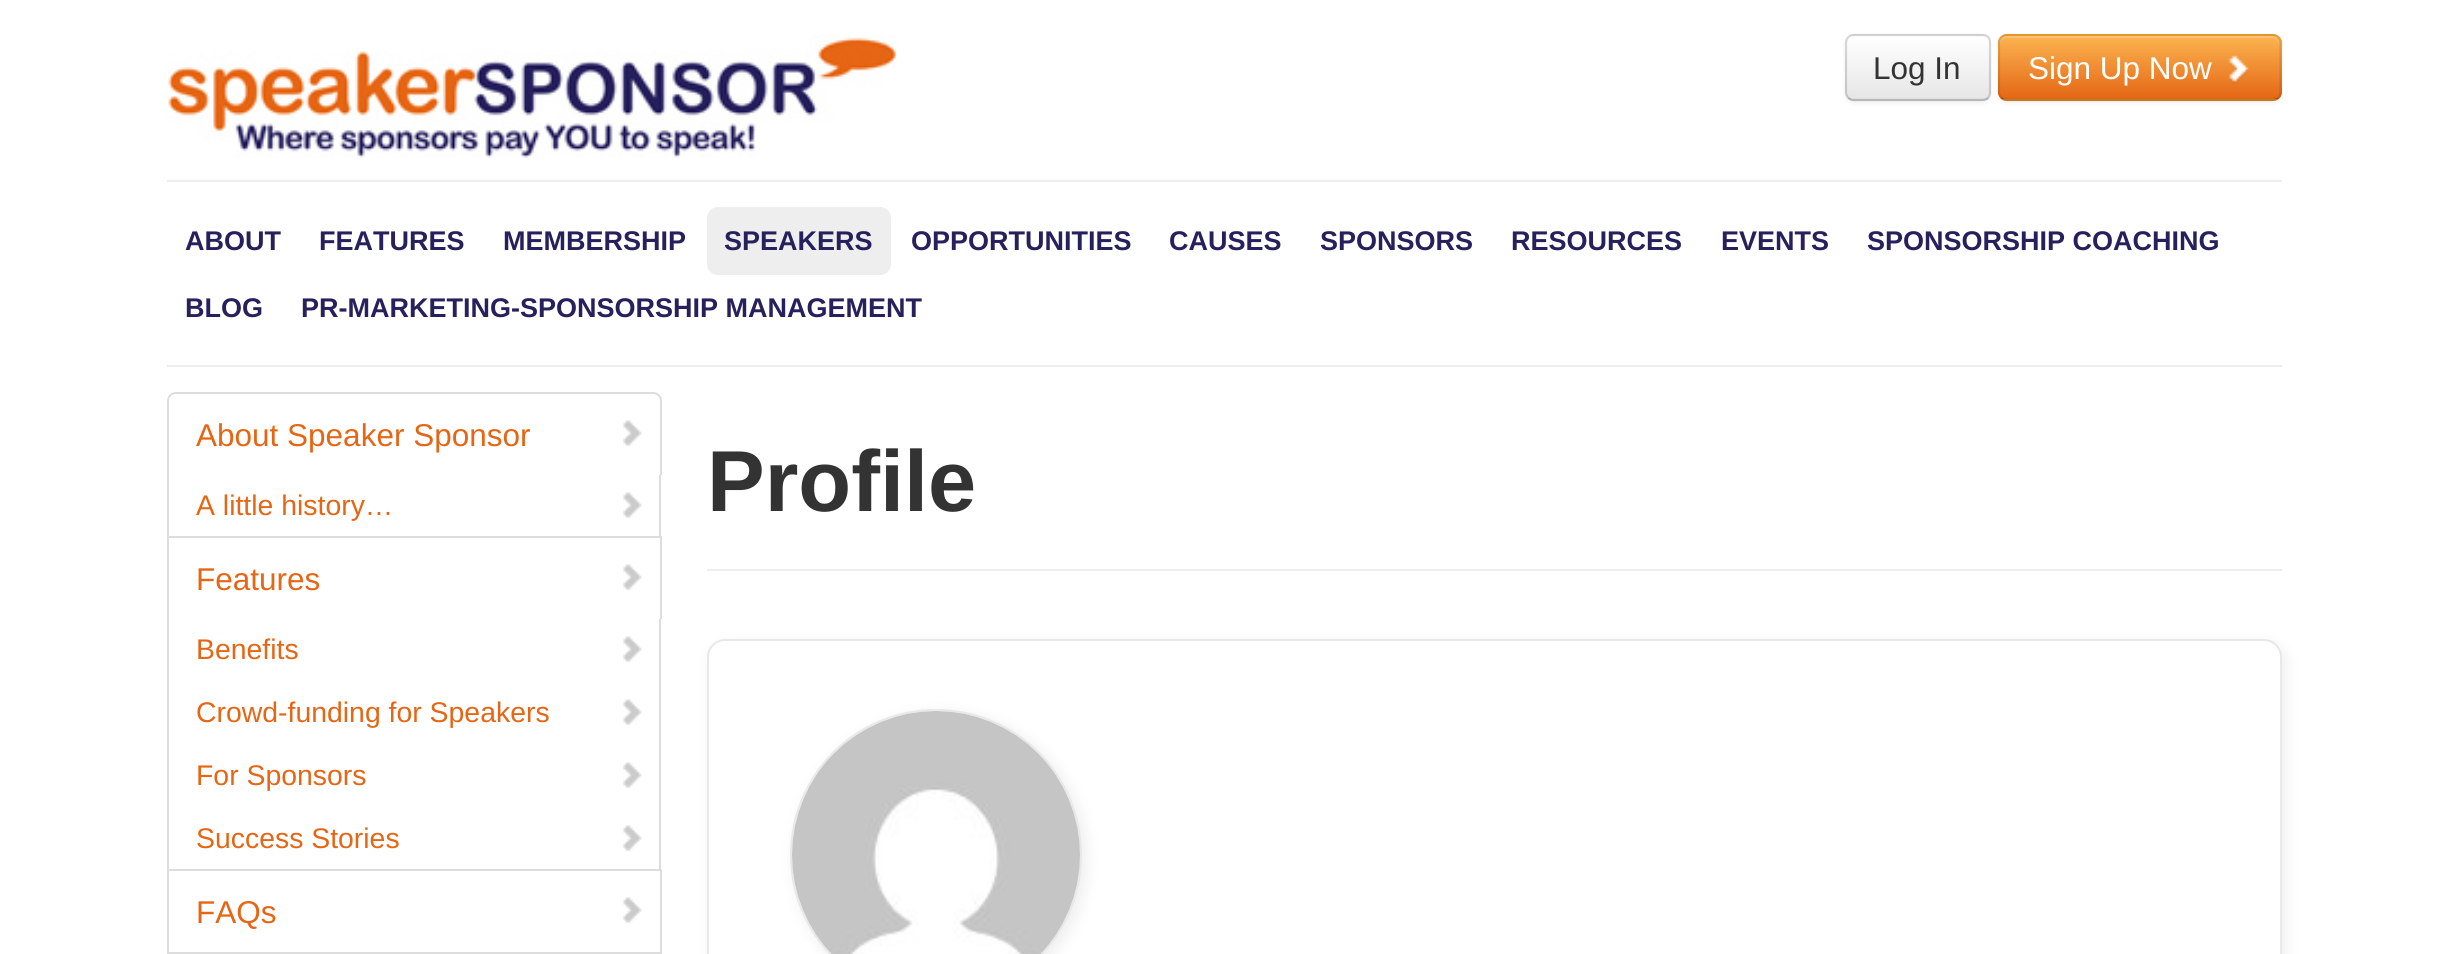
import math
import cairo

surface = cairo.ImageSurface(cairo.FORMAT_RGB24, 2447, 954)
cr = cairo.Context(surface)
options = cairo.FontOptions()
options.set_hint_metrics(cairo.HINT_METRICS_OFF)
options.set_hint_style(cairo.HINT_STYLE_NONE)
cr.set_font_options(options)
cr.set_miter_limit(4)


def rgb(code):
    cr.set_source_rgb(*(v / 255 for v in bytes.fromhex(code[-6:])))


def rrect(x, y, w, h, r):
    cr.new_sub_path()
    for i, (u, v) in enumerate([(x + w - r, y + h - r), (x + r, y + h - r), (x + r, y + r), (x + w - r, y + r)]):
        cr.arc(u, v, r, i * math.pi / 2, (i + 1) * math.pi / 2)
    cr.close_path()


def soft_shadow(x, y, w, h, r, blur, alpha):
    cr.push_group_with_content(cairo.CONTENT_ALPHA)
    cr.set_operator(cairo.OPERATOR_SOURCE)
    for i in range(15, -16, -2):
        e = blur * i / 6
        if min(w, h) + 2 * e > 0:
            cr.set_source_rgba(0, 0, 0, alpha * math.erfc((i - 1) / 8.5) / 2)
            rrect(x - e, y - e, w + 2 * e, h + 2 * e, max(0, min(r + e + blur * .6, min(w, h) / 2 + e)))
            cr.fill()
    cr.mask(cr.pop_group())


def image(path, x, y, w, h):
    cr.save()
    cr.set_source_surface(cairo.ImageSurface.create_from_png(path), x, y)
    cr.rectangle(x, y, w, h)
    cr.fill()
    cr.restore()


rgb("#ffffff")
cr.paint()
image("img/1.png", 167, 34, 730, 124)
rgb("#000000")
soft_shadow(1845, 36, 146, 68, 9, 2, 0.05)
rgb("#f5f5f5")
rrect(1845, 34, 146, 67, 9)
cr.fill()
cr.save()
rrect(1845, 34, 146, 67, 9)
cr.clip()
gradient = cairo.LinearGradient(1918, 36, 1918, 99)
gradient.add_color_stop_rgba(0, 1, 1, 1, 1)
gradient.add_color_stop_rgba(1, 0.902, 0.902, 0.902, 1)
cr.set_source(gradient)
cr.rectangle(1845, 36, 146, 63)
cr.fill()
cr.restore()
cr.new_path()
cr.move_to(1988, 98)
cr.curve_to(1986.5, 99.5, 1984.5, 100, 1982, 100)
cr.line_to(1854, 100)
cr.curve_to(1852, 100, 1850, 99.5, 1848.5, 98)
cr.set_source_rgba(0, 0, 0, 0.25)
cr.set_line_width(2.2)
cr.stroke()
cr.new_path()
cr.move_to(1848.5, 98)
cr.curve_to(1847, 96.5, 1846, 94.5, 1846, 92)
cr.line_to(1846, 43)
cr.curve_to(1846, 40.5, 1847, 38.5, 1848.5, 37)
cr.curve_to(1850, 35.5, 1852, 35, 1854, 35)
cr.line_to(1982, 35)
cr.curve_to(1984.5, 35, 1986.5, 35.5, 1988, 37)
cr.curve_to(1989.5, 38.5, 1990, 40.5, 1990, 43)
cr.line_to(1990, 92)
cr.curve_to(1990, 94.5, 1989.5, 96.5, 1988, 98)
cr.set_source_rgba(0, 0, 0, 0.15)
cr.stroke()
rgb("#000000")
soft_shadow(1998, 36, 284, 68, 9, 2, 0.05)
rgb("#faa732")
rrect(1998, 34, 284, 67, 9)
cr.fill()
cr.save()
rrect(1998, 34, 284, 67, 9)
cr.clip()
gradient = cairo.LinearGradient(2140, 36, 2140, 99)
gradient.add_color_stop_rgba(0, 0.984, 0.706, 0.314, 1)
gradient.add_color_stop_rgba(1, 0.898, 0.4, 0.082, 1)
cr.set_source(gradient)
cr.rectangle(1998, 36, 284, 63)
cr.fill()
cr.restore()
cr.set_source_rgba(1, 1, 1, 0.2)
cr.new_path()
cr.move_to(2007, 38)
cr.line_to(2272, 38)
cr.curve_to(2276, 38, 2279, 41, 2279, 45)
cr.line_to(2279, 43)
cr.curve_to(2279, 39, 2276, 36, 2272, 36)
cr.line_to(2007, 36)
cr.curve_to(2003, 36, 2000, 39, 2000, 43)
cr.line_to(2000, 45)
cr.curve_to(2000, 41, 2003, 38, 2007, 38)
cr.close_path()
cr.fill()
cr.new_path()
cr.move_to(2278, 98)
cr.curve_to(2276.5, 99.5, 2274.5, 100, 2272.5, 100)
cr.line_to(2007, 100)
cr.curve_to(2005, 100, 2003, 99.5, 2001.5, 98)
cr.set_source_rgba(0, 0, 0, 0.25)
cr.stroke()
cr.new_path()
cr.move_to(2001.5, 98)
cr.curve_to(2000, 96.5, 1999, 94.5, 1999, 92)
cr.line_to(1999, 43)
cr.curve_to(1999, 40.5, 2000, 38.5, 2001.5, 37)
cr.curve_to(2003, 35.5, 2005, 35, 2007, 35)
cr.line_to(2272.5, 35)
cr.curve_to(2274.5, 35, 2276.5, 35.5, 2278, 37)
cr.curve_to(2279.5, 38.5, 2280.5, 40.5, 2280.5, 43)
cr.line_to(2280.5, 92)
cr.curve_to(2280.5, 94.5, 2279.5, 96.5, 2278, 98)
cr.set_source_rgba(0, 0, 0, 0.1)
cr.stroke()
image("img/2.png", 2229, 55, 20, 29)
rgb("#eeeeee")
cr.rectangle(167, 180, 2115, 2)
cr.fill()
rrect(707, 207, 184, 68, 11)
cr.fill()
cr.rectangle(167, 365, 2115, 2)
cr.fill()
cr.new_path()
cr.move_to(176, 393)
cr.line_to(653, 393)
cr.curve_to(657.5, 393, 661, 396.5, 661, 401)
cr.line_to(661, 476)
cr.line_to(168, 476)
cr.line_to(168, 401)
cr.curve_to(168, 396.5, 171.5, 393, 176, 393)
cr.close_path()
rgb("#dddddd")
cr.set_line_width(2)
cr.stroke()
image("img/3.png", 623, 420, 19, 27)
for x, y, w, h, color in [
    (169, 475, 493, 2, "#ffffff"),
    (659, 475, 2, 63, "#dddddd"),
    (167, 475, 2, 63, "#dddddd"),
]:
    rgb(color)
    cr.rectangle(x, y, w, h)
    cr.fill()
image("img/3.png", 623, 492, 19, 27)
cr.rectangle(168, 537, 493, 83)
cr.stroke()
image("img/4.png", 623, 564, 19, 27)
for x, y, w, h, color in [
    (169, 619, 493, 2, "#ffffff"),
    (659, 619, 2, 252, "#dddddd"),
    (167, 619, 2, 252, "#dddddd"),
]:
    rgb(color)
    cr.rectangle(x, y, w, h)
    cr.fill()
image("img/3.png", 623, 636, 19, 27)
image("img/3.png", 623, 699, 19, 27)
image("img/3.png", 623, 762, 19, 27)
image("img/4.png", 623, 825, 19, 27)
cr.rectangle(168, 870, 493, 83)
cr.stroke()
image("img/3.png", 623, 897, 19, 27)
rgb("#eeeeee")
cr.rectangle(707, 569, 1575, 2)
cr.fill()
rgb("#000000")
soft_shadow(711, 644, 1575, 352, 18, 8, 0.07)
rgb("#ffffff")
rrect(708, 640, 1573, 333, 17)
cr.fill_preserve()
rgb("#e8e8e8")
cr.stroke()
rgb("#000000")
soft_shadow(794, 713, 293, 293, 146.5, 8, 0.07)
cr.arc(936, 855, 145, 0, 2 * math.pi)
rgb("#e8e8e8")
cr.stroke()
image("img/5.png", 792, 711, 288, 243)
cr.select_font_face("Liberation Sans")
cr.set_font_size(31.5)
rgb("#333333")
cr.move_to(1873, 79)
cr.show_text("Log In")
rgb("#ffffff")
cr.move_to(2028, 79)
cr.show_text("Sign Up Now")
cr.select_font_face("Liberation Sans", cairo.FONT_SLANT_NORMAL, cairo.FONT_WEIGHT_BOLD)
cr.set_font_size(27)
rgb("#26205c")
for x, y, s in [
    (185, 250, "ABOUT"),
    (319, 250, "FEATURES"),
    (503, 250, "MEMBERSHIP"),
    (724, 250, "SPEAKERS"),
    (911, 250, "OPPORTUNITIES"),
    (1169, 250, "CAUSES"),
    (1320, 250, "SPONSORS"),
    (1511, 250, "RESOURCES"),
    (1721, 250, "EVENTS"),
    (1867, 250, "SPONSORSHIP COACHING"),
    (185, 317, "BLOG"),
    (301, 317, "PR-MARKETING-SPONSORSHIP MANAGEMENT"),
]:
    cr.move_to(x, y)
    cr.show_text(s)
cr.select_font_face("Liberation Sans")
cr.set_font_size(31.5)
rgb("#e56615")
cr.move_to(196, 446)
cr.show_text("About Speaker Sponsor")
cr.set_font_size(28.4)
cr.move_to(196, 515)
cr.show_text("A little history…")
cr.set_font_size(31.5)
cr.move_to(196, 590)
cr.show_text("Features")
cr.set_font_size(28.4)
for x, y, s in [
    (196, 659, "Benefits"),
    (196, 722, "Crowd-funding for Speakers"),
    (196, 785, "For Sponsors"),
    (196, 848, "Success Stories"),
]:
    cr.move_to(x, y)
    cr.show_text(s)
cr.set_font_size(31.5)
cr.move_to(196, 923)
cr.show_text("FAQs")
cr.select_font_face("Liberation Sans", cairo.FONT_SLANT_NORMAL, cairo.FONT_WEIGHT_BOLD)
cr.set_font_size(86.5)
rgb("#333333")
cr.move_to(707, 511)
cr.show_text("Profile")
surface.write_to_png("page.png")
